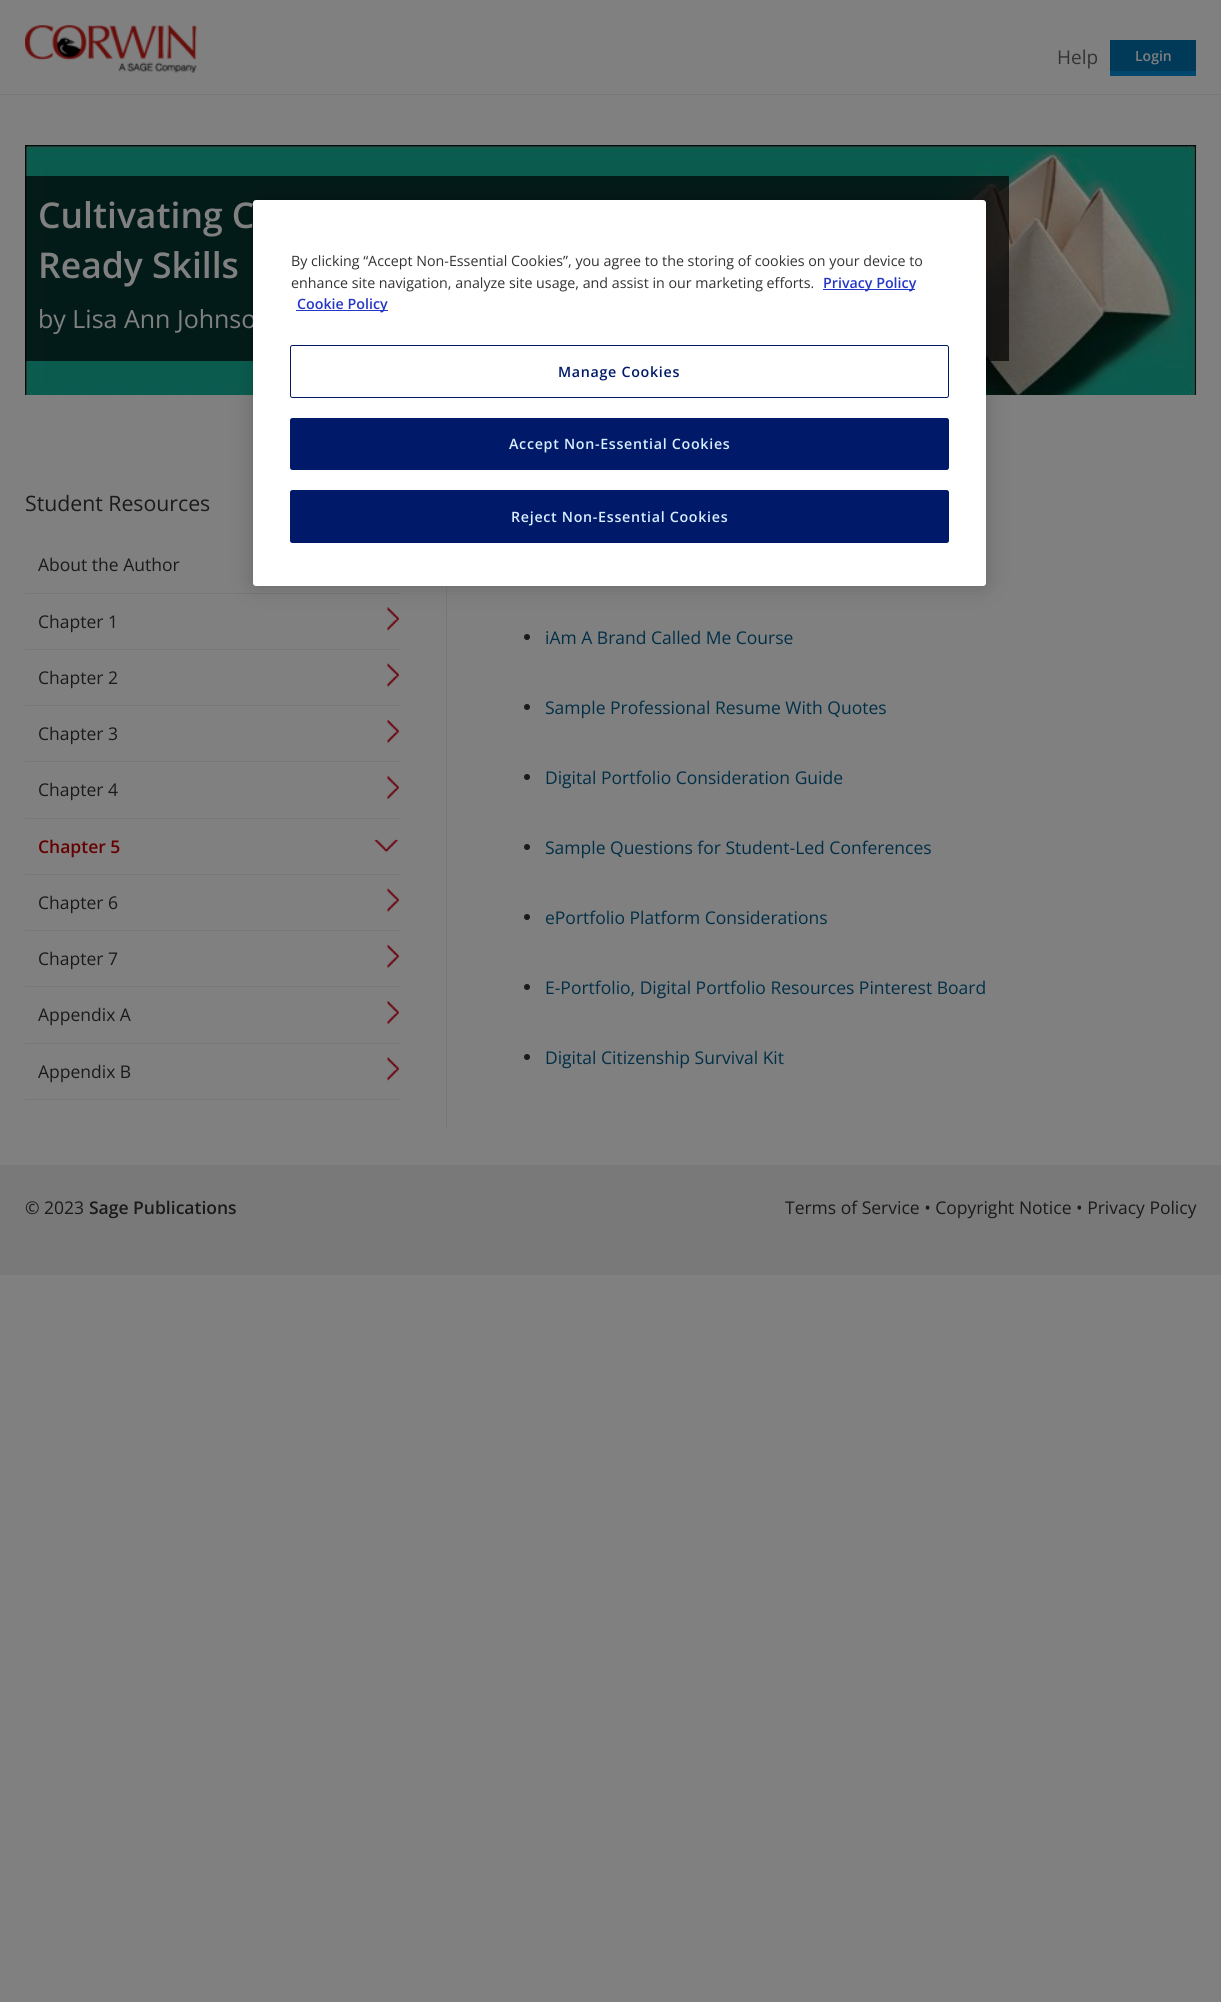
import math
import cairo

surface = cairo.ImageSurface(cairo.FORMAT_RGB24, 1221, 2002)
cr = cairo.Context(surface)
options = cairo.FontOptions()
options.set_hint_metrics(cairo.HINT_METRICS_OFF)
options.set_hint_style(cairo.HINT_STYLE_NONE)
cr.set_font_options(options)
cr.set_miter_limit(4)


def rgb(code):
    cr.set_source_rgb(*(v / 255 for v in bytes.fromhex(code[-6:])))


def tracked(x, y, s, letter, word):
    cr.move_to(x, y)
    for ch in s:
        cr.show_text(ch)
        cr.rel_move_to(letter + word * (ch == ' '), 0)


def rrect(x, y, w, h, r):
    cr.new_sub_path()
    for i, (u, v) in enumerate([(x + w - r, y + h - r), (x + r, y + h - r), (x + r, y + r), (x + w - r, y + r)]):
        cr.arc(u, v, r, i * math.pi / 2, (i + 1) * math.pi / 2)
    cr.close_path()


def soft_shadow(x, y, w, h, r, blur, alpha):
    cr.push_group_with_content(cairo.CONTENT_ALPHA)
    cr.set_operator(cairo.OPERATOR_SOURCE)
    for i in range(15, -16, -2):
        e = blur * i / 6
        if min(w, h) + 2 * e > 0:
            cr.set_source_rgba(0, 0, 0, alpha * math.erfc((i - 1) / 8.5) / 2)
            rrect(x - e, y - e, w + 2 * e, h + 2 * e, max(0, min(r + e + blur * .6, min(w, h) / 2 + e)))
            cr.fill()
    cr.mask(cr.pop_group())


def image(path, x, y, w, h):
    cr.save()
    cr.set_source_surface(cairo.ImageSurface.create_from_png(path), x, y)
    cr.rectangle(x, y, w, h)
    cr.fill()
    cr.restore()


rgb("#808080")
cr.paint()
rgb("#777777")
cr.rectangle(0, 94, 1221, 1)
cr.fill()
image("img/1.png", 25, 25, 172, 48)
rgb("#013a59")
cr.rectangle(1110, 40, 86, 31)
cr.fill()
rgb("#01476e")
cr.rectangle(1110, 71, 86, 5)
cr.fill()
image("img/2.png", 25, 145, 1172, 250)
cr.set_source_rgba(0, 0, 0, 0.7)
cr.rectangle(25, 176, 984, 185)
cr.fill()
rgb("#777777")
cr.rectangle(25, 593, 375, 1)
cr.fill()
image("img/3.png", 387, 607, 12, 24)
cr.rectangle(25, 649, 375, 1)
cr.fill()
image("img/4.png", 387, 663, 12, 24)
cr.rectangle(25, 705, 375, 1)
cr.fill()
image("img/5.png", 387, 719, 12, 24)
cr.rectangle(25, 761, 375, 1)
cr.fill()
image("img/6.png", 387, 776, 12, 23)
cr.rectangle(25, 818, 375, 1)
cr.fill()
image("img/7.png", 374, 839, 24, 13)
cr.rectangle(25, 874, 375, 1)
cr.fill()
image("img/4.png", 387, 888, 12, 24)
cr.rectangle(25, 930, 375, 1)
cr.fill()
image("img/5.png", 387, 944, 12, 24)
cr.rectangle(25, 986, 375, 1)
cr.fill()
image("img/6.png", 387, 1001, 12, 23)
cr.rectangle(25, 1043, 375, 1)
cr.fill()
image("img/3.png", 387, 1057, 12, 24)
cr.rectangle(25, 1099, 375, 1)
cr.fill()
cr.rectangle(446, 586, 1, 542)
cr.fill()
rgb("#1a1a1a")
cr.arc(527, 637, 3, 0, 2 * math.pi)
cr.fill()
cr.arc(527, 707, 3, 0, 2 * math.pi)
cr.fill()
cr.arc(527, 777, 3, 0, 2 * math.pi)
cr.fill()
cr.arc(527, 847, 3, 0, 2 * math.pi)
cr.fill()
cr.arc(527, 917, 3, 0, 2 * math.pi)
cr.fill()
cr.arc(527, 987, 3, 0, 2 * math.pi)
cr.fill()
cr.arc(527, 1057, 3, 0, 2 * math.pi)
cr.fill()
rgb("#000000")
soft_shadow(253, 200, 733, 386, 3, 11, 0.2)
rgb("#797979")
cr.rectangle(0, 1165, 1221, 110)
cr.fill()
cr.select_font_face("Open Sans")
cr.set_font_size(19)
rgb("#333333")
cr.move_to(1057, 64)
cr.show_text("Help")
cr.select_font_face("Open Sans SemiBold")
cr.set_font_size(14)
rgb("#808080")
cr.move_to(1135, 61)
cr.show_text("Login")
cr.set_font_size(35.5)
cr.move_to(38, 228)
cr.show_text("Cultivating C")
cr.move_to(38, 278)
cr.show_text("Ready Skills")
cr.select_font_face("Open Sans")
cr.set_font_size(25)
cr.move_to(38, 328)
cr.show_text("by Lisa Ann Johnso")
cr.set_font_size(21.25)
rgb("#1a1a1a")
cr.move_to(25, 511)
cr.show_text("Student Resources")
cr.set_font_size(17.5)
for x, y, s in [
    (38, 571, "About the Author"),
    (38, 628, "Chapter 1"),
    (38, 684, "Chapter 2"),
    (38, 740, "Chapter 3"),
    (38, 796, "Chapter 4"),
]:
    cr.move_to(x, y)
    cr.show_text(s)
cr.select_font_face("Open Sans SemiBold")
rgb("#660000")
cr.move_to(38, 853)
cr.show_text("Chapter 5")
cr.select_font_face("Open Sans")
rgb("#1a1a1a")
for x, y, s in [
    (38, 909, "Chapter 6"),
    (38, 965, "Chapter 7"),
    (38, 1021, "Appendix A"),
    (38, 1078, "Appendix B"),
]:
    cr.move_to(x, y)
    cr.show_text(s)
rgb("#012f47")
for x, y, s in [
    (545, 644, "iAm A Brand Called Me Course"),
    (545, 714, "Sample Professional Resume With Quotes"),
    (545, 784, "Digital Portfolio Consideration Guide"),
    (545, 854, "Sample Questions for Student-Led Conferences"),
    (545, 924, "ePortfolio Platform Considerations"),
    (545, 994, "E-Portfolio, Digital Portfolio Resources Pinterest Board"),
    (545, 1064, "Digital Citizenship Survival Kit"),
]:
    cr.move_to(x, y)
    cr.show_text(s)
rgb("#ffffff")
rrect(253, 200, 733, 386, 3)
cr.fill()
cr.set_font_size(14.25)
rgb("#333333")
cr.move_to(291, 266)
cr.show_text("By clicking “Accept Non-Essential Cookies”, you agree to the storing of cookies on your device to")
cr.move_to(291, 288)
cr.show_text("enhance site navigation, analyze site usage, and assist in our marketing efforts.")
rgb("#2537c6")
cr.rectangle(823, 289, 92, 1)
cr.fill()
cr.select_font_face("Open Sans SemiBold")
cr.move_to(823, 288)
cr.show_text("Privacy Policy")
cr.rectangle(296, 310, 92, 1)
cr.fill()
cr.move_to(297, 309)
cr.show_text("Cookie Policy")
rrect(290.5, 345.5, 658, 52, 2)
rgb("#001a69")
cr.set_line_width(1)
cr.stroke()
tracked(558, 377, "Manage Cookies", 0.7, 0)
rrect(290.5, 418.5, 658, 51, 2)
cr.fill_preserve()
cr.stroke()
rgb("#d9eeff")
tracked(509, 449, "Accept Non-Essential Cookies", 0.7, 0)
rgb("#001a69")
rrect(290.5, 490.5, 658, 52, 2)
cr.fill_preserve()
cr.stroke()
rgb("#d9eeff")
tracked(511, 522, "Reject Non-Essential Cookies", 0.7, 0)
cr.select_font_face("Open Sans")
cr.set_font_size(17.5)
rgb("#1a1a1a")
cr.move_to(25, 1214)
cr.show_text("© 2023")
cr.select_font_face("Open Sans SemiBold")
cr.move_to(89, 1214)
cr.show_text("Sage Publications")
cr.select_font_face("Open Sans")
cr.move_to(785, 1214)
cr.show_text("Terms of Service • Copyright Notice • Privacy Policy")
surface.write_to_png("page.png")
